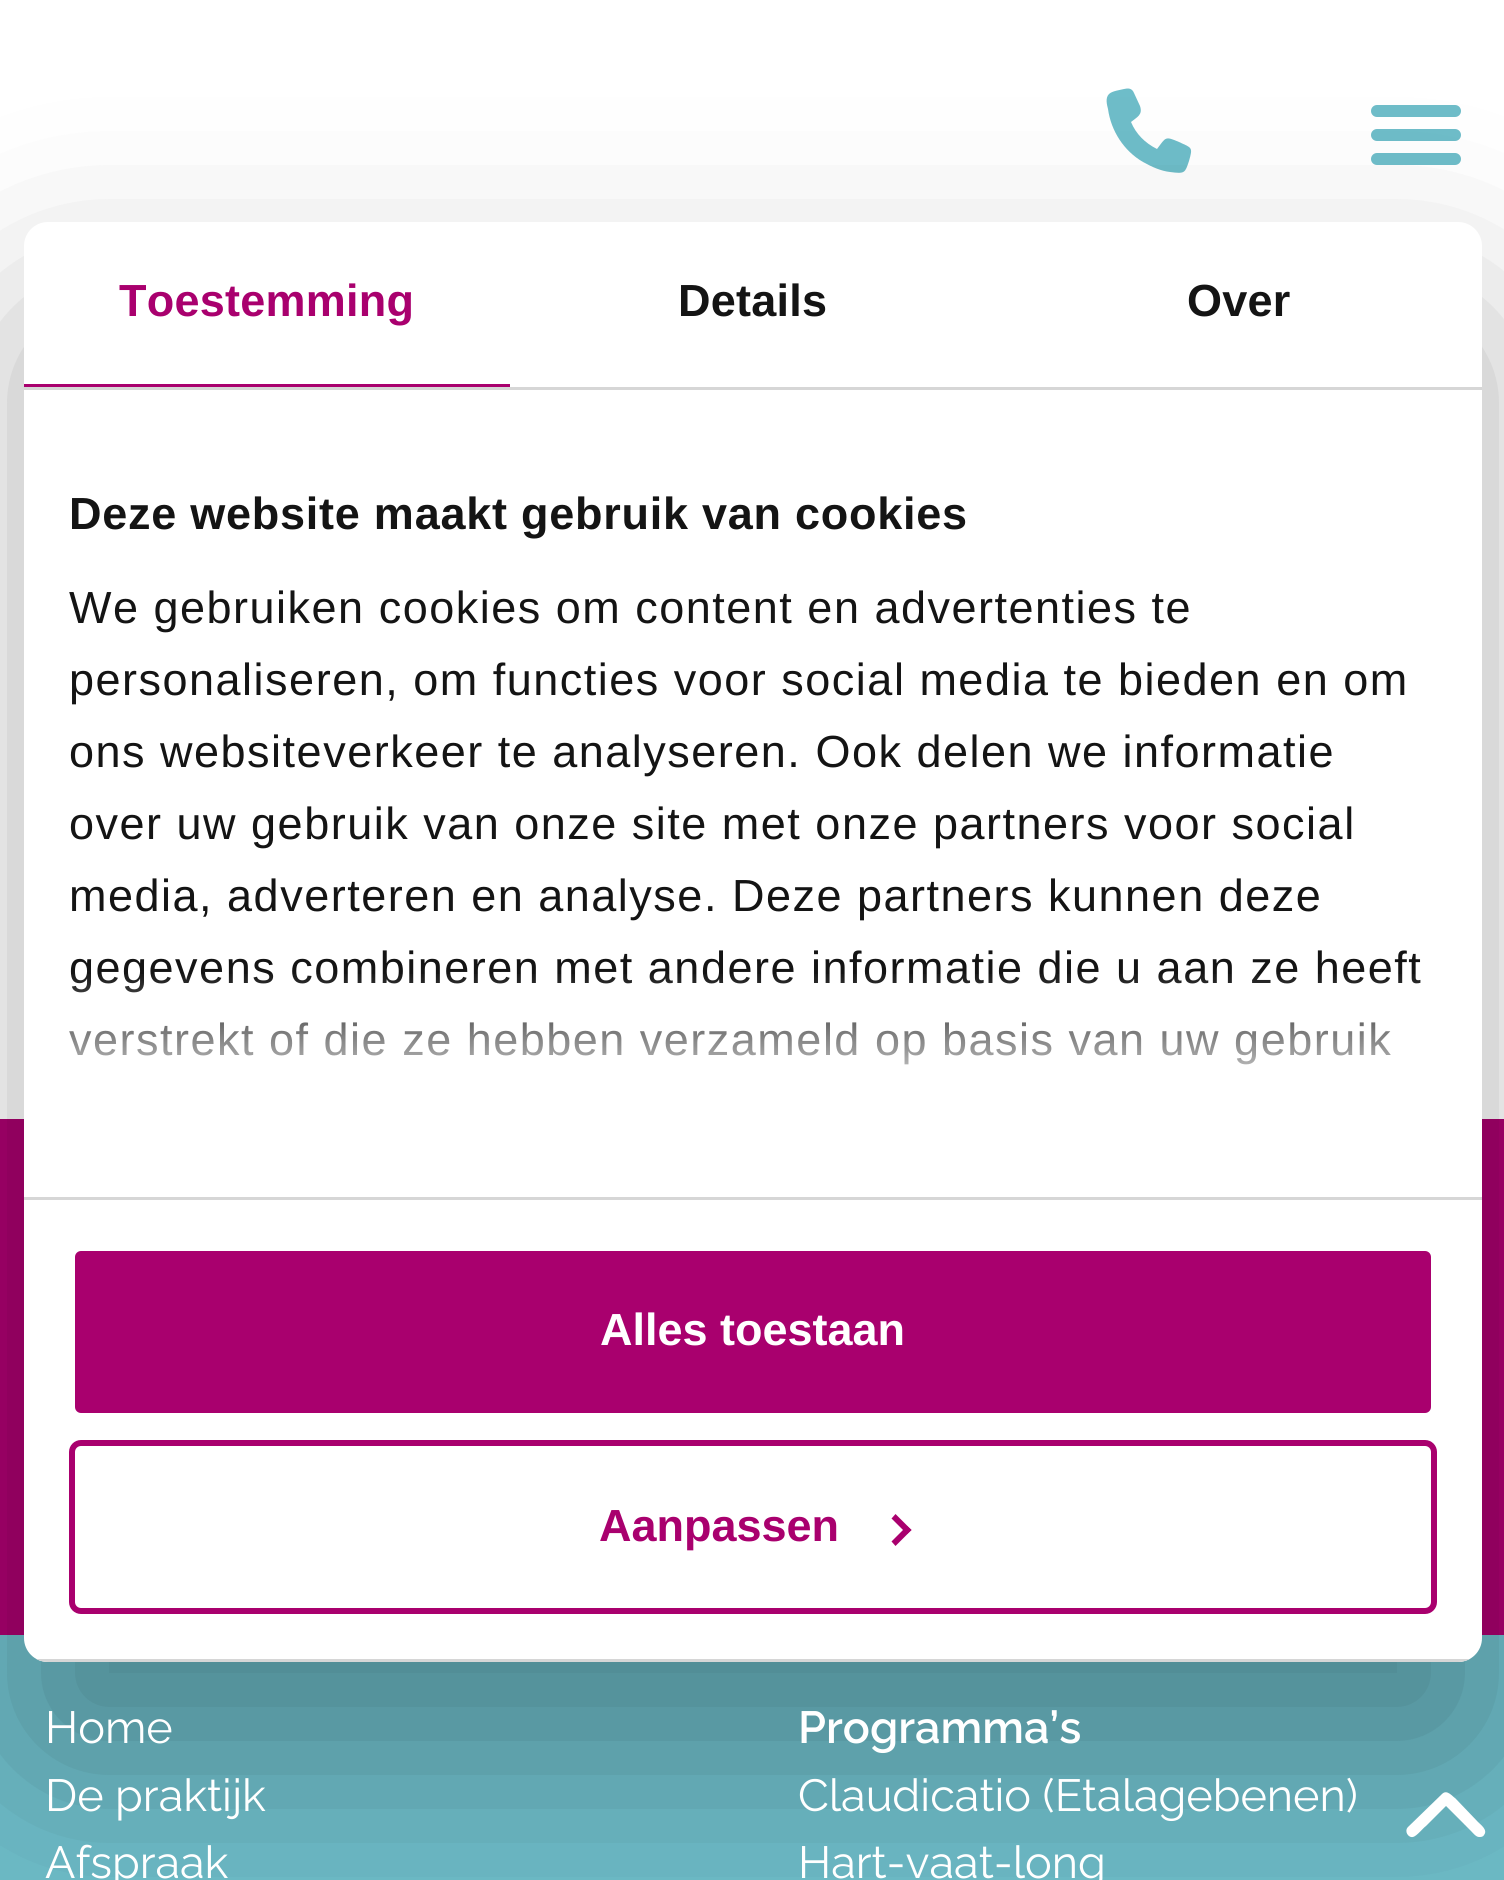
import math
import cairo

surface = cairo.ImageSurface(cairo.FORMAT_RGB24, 1504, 1880)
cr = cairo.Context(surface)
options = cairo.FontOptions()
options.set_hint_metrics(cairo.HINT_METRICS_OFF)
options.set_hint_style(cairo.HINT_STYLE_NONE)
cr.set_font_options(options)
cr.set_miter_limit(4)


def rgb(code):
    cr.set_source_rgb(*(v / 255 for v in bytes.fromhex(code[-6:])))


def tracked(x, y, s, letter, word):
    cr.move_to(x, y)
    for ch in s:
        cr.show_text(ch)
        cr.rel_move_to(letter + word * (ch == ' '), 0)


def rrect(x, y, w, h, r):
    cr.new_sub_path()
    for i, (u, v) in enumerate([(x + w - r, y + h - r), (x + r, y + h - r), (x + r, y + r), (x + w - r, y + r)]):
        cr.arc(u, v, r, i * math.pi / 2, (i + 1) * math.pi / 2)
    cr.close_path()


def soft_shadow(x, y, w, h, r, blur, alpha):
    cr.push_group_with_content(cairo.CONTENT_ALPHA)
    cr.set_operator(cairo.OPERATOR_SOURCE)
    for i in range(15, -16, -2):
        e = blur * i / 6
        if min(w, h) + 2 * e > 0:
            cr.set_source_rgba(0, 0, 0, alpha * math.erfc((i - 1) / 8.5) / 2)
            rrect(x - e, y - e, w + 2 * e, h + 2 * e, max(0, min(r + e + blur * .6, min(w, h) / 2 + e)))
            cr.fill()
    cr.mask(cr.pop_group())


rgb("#ffffff")
cr.paint()
rgb("#6ebdc9")
cr.new_path()
cr.move_to(1134, 93)
cr.curve_to(1132, 88, 1128, 88, 1124, 89)
cr.curve_to(1120, 90, 1112, 91, 1109, 94)
cr.curve_to(1105, 98, 1107, 105, 1108, 109)
cr.curve_to(1111, 131, 1124, 151, 1143, 162)
cr.curve_to(1152, 167, 1161, 171, 1170, 172)
cr.curve_to(1185, 174, 1185, 173, 1189, 161)
cr.curve_to(1193, 147, 1192, 148, 1179, 142)
cr.curve_to(1165, 136, 1166, 137, 1157, 149)
cr.curve_to(1145, 143, 1136, 134, 1131, 122)
cr.curve_to(1137, 117, 1143, 115, 1140, 106)
cr.close_path()
cr.fill()
rrect(1371, 105, 90, 12, 6)
cr.fill()
rrect(1371, 129, 90, 12, 6)
cr.fill()
rrect(1371, 153, 90, 12, 6)
cr.fill()
rgb("#a9006e")
cr.rectangle(0, 1119, 1504, 516)
cr.fill()
rgb("#6ebdc9")
cr.rectangle(0, 1635, 1504, 245)
cr.fill()
rgb("#000000")
soft_shadow(24, 318, 1458, 1440, 24, 102, 0.3)
rgb("#ffffff")
rrect(24, 222, 1458, 1440, 24)
cr.fill()
for x, y, w, h, color in [
    (24, 387, 1458, 3, "#d6d6d6"),
    (24, 384, 486, 3, "#a9006e"),
    (24, 1197, 1458, 3, "#d6d6d6"),
]:
    rgb(color)
    cr.rectangle(x, y, w, h)
    cr.fill()
cr.save()
rrect(24, 222, 1458, 1440, 24)
cr.clip()
cr.rectangle(36, 1659, 1434, 3)
cr.fill()
cr.restore()
rgb("#a9006e")
rrect(72, 1248, 1362, 168, 9)
cr.fill_preserve()
rgb("#ffffff")
cr.set_line_width(6)
cr.stroke()
rrect(72, 1443, 1362, 168, 9)
rgb("#a9006e")
cr.stroke()
cr.new_path()
cr.move_to(895.5, 1514)
cr.line_to(911.5, 1530)
cr.line_to(907, 1534)
cr.line_to(891.5, 1518.5)
cr.close_path()
cr.fill()
cr.new_path()
cr.move_to(907, 1526)
cr.line_to(911.5, 1530)
cr.line_to(895.5, 1546)
cr.line_to(891.5, 1541.5)
cr.close_path()
cr.fill()
rgb("#ffffff")
cr.new_path()
cr.move_to(1442, 1794)
cr.curve_to(1447, 1789, 1452, 1796, 1456, 1799)
cr.line_to(1478, 1822)
cr.curve_to(1481, 1825, 1488, 1830, 1484, 1835)
cr.curve_to(1483, 1837, 1481, 1837, 1479, 1837)
cr.curve_to(1476, 1837, 1473, 1833, 1471, 1831)
cr.line_to(1446, 1806)
cr.line_to(1426, 1826)
cr.curve_to(1423, 1828, 1417, 1836, 1413, 1837)
cr.curve_to(1408, 1838, 1404, 1831, 1408, 1827)
cr.close_path()
cr.fill()
cr.select_font_face("Liberation Sans", cairo.FONT_SLANT_NORMAL, cairo.FONT_WEIGHT_BOLD)
cr.set_font_size(45)
rgb("#a9006e")
tracked(119, 316, "Toestemming", 0.25, 0)
rgb("#141414")
tracked(678, 316, "Details", 0.25, 0)
tracked(1187, 316, "Over", 0.25, 0)
tracked(69, 529, "Deze website maakt gebruik van cookies", 0.75, 0)
cr.select_font_face("Liberation Sans")
for x, y, s in [
    (69, 623, "We gebruiken cookies om content en advertenties te"),
    (69, 695, "personaliseren, om functies voor social media te bieden en om"),
    (69, 767, "ons websiteverkeer te analyseren. Ook delen we informatie"),
    (69, 839, "over uw gebruik van onze site met onze partners voor social"),
    (69, 911, "media, adverteren en analyse. Deze partners kunnen deze"),
    (69, 983, "gegevens combineren met andere informatie die u aan ze heeft"),
    (69, 1055, "verstrekt of die ze hebben verzameld op basis van uw gebruik"),
]:
    tracked(x, y, s, 1.5, 0)
gradient = cairo.LinearGradient(734, 1196, 734, 971)
gradient.add_color_stop_rgba(0, 1, 1, 1, 1)
gradient.add_color_stop_rgba(0.5, 1, 1, 1, 0.8)
gradient.add_color_stop_rgba(1, 1, 1, 1, 0)
cr.set_source(gradient)
cr.rectangle(69, 974, 1352, 91)
cr.fill()
cr.select_font_face("Liberation Sans", cairo.FONT_SLANT_NORMAL, cairo.FONT_WEIGHT_BOLD)
rgb("#ffffff")
cr.move_to(600, 1345)
cr.show_text("Alles toestaan")
rgb("#a9006e")
cr.move_to(599, 1541)
cr.show_text("Aanpassen")
cr.select_font_face("Raleway")
rgb("#ffffff")
for x, y, s in [
    (45, 1743, "Home"),
    (45, 1811, "De praktijk"),
    (45, 1878, "Afspraak"),
]:
    cr.move_to(x, y)
    cr.show_text(s)
cr.select_font_face("Raleway SemiBold")
cr.move_to(798, 1743)
cr.show_text("Programma’s")
cr.select_font_face("Raleway")
cr.move_to(798, 1811)
cr.show_text("Claudicatio (Etalagebenen)")
cr.move_to(798, 1878)
cr.show_text("Hart-vaat-long")
surface.write_to_png("page.png")
